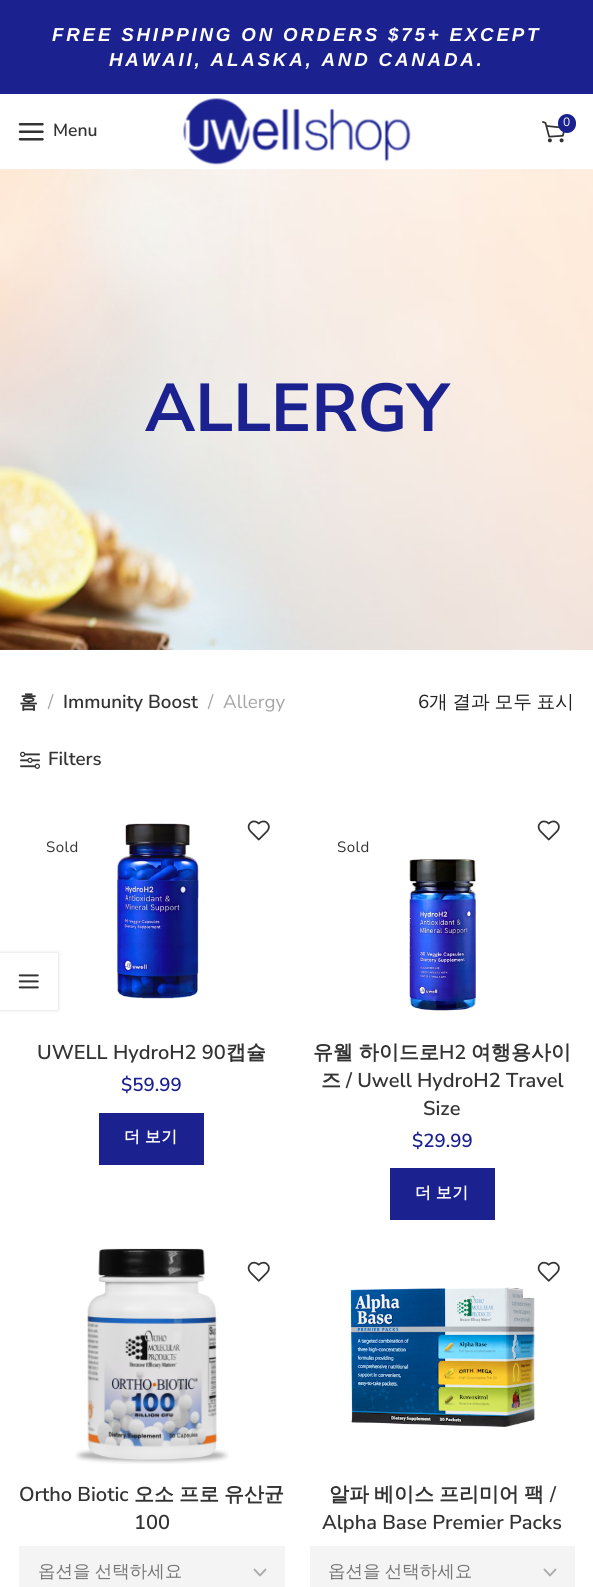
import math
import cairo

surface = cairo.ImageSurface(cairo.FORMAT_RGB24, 593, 1587)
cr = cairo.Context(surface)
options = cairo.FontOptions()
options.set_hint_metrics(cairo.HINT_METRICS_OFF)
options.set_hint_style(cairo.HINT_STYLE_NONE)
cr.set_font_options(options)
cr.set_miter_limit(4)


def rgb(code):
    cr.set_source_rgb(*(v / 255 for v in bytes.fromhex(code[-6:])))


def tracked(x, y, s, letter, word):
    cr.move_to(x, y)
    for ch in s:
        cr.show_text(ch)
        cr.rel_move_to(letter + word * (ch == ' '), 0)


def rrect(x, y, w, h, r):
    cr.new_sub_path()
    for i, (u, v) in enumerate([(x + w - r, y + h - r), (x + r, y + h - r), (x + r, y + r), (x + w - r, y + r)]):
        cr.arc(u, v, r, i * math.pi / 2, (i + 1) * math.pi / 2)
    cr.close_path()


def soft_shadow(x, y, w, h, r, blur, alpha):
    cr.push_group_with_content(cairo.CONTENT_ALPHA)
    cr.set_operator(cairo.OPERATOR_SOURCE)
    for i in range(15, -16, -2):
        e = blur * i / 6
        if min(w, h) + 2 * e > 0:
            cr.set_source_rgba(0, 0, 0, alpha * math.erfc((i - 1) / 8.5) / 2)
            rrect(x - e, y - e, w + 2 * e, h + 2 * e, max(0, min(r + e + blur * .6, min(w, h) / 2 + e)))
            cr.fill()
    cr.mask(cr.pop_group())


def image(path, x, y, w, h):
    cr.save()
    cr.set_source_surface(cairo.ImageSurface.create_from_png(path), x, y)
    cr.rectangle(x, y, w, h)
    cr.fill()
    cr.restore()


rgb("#ffffff")
cr.paint()
rgb("#1b2290")
cr.rectangle(0, 0, 593, 94)
cr.fill()
image("img/1.png", 183, 98, 228, 67)
image("img/2.png", 542, 121, 23, 22)
rrect(558, 114, 18, 19, 9)
cr.fill()
image("img/3.png", 18, 123, 26, 18)
image("img/4.png", 0, 169, 593, 481)
image("img/5.png", 20, 751, 20, 18)
image("img/6.png", 117, 823, 82, 176)
image("img/7.png", 247, 820, 23, 21)
cr.rectangle(99, 1113, 105, 52)
cr.fill()
image("img/7.png", 537, 820, 23, 21)
image("img/8.png", 409, 859, 67, 152)
cr.rectangle(390, 1168, 105, 52)
cr.fill()
image("img/9.png", 75, 1248, 154, 216)
image("img/10.png", 247, 1261, 23, 21)
rgb("#f4f4f4")
cr.rectangle(19, 1546, 266, 41)
cr.fill()
cr.new_path()
cr.move_to(254.5, 1569.5)
cr.line_to(260, 1575.5)
cr.line_to(265.5, 1569.5)
rgb("#ababab")
cr.set_line_width(1.9)
cr.set_line_cap(cairo.LINE_CAP_ROUND)
cr.set_line_join(cairo.LINE_JOIN_ROUND)
cr.stroke()
image("img/11.png", 350, 1287, 185, 140)
rgb("#ffffff")
cr.rectangle(523, 1289, 12, 9)
cr.fill()
image("img/10.png", 537, 1261, 23, 21)
rgb("#f4f4f4")
cr.rectangle(310, 1546, 265, 41)
cr.fill()
cr.new_path()
cr.move_to(544.5, 1569.5)
cr.line_to(550, 1575.5)
cr.line_to(555.5, 1569.5)
rgb("#ababab")
cr.stroke()
rgb("#000000")
soft_shadow(0, 953, 58, 57, 0, 2, 0.15)
rgb("#ffffff")
cr.rectangle(0, 953, 58, 57)
cr.fill()
image("img/12.png", 18, 974, 21, 15)
cr.select_font_face("Liberation Sans", cairo.FONT_SLANT_ITALIC, cairo.FONT_WEIGHT_BOLD)
cr.set_font_size(18.75)
tracked(52, 41, "FREE SHIPPING ON ORDERS $75+ EXCEPT", 2.8, 0)
tracked(109, 66, "HAWAII, ALASKA, AND CANADA.", 2.8, 0)
cr.select_font_face("Nunito Sans")
cr.set_font_size(12)
cr.move_to(563, 126)
cr.show_text("0")
cr.select_font_face("Nunito Sans SemiBold")
cr.set_font_size(17.5)
rgb("#333333")
cr.move_to(53, 136)
cr.show_text("Menu")
cr.select_font_face("Nunito Sans", cairo.FONT_SLANT_NORMAL, cairo.FONT_WEIGHT_BOLD)
cr.set_font_size(67.5)
rgb("#1b2290")
cr.move_to(145, 431)
cr.show_text("ALLERGY")
cr.select_font_face("WenQuanYi Zen Hei", cairo.FONT_SLANT_NORMAL, cairo.FONT_WEIGHT_BOLD)
cr.set_font_size(18.75)
rgb("#333333")
cr.move_to(19, 708)
cr.show_text("홈")
cr.select_font_face("Nunito Sans")
rgb("#a5a5a5")
cr.move_to(48, 708)
cr.show_text("/")
cr.select_font_face("Nunito Sans SemiBold")
rgb("#333333")
cr.move_to(63, 708)
cr.show_text("Immunity Boost")
cr.select_font_face("Nunito Sans")
rgb("#a5a5a5")
cr.move_to(208, 708)
cr.show_text("/")
cr.move_to(223, 708)
cr.show_text("Allergy")
rgb("#222222")
cr.move_to(418, 708)
cr.show_text("6")
cr.select_font_face("WenQuanYi Zen Hei Medium")
tracked(429, 708, "개 결과 모두 표시", 0, -1)
cr.select_font_face("Nunito Sans SemiBold")
rgb("#333333")
cr.move_to(48, 765)
cr.show_text("Filters")
cr.select_font_face("Nunito Sans")
cr.set_font_size(15)
tracked(46, 852, "Sold", 0.5, 0)
cr.select_font_face("Nunito Sans SemiBold")
cr.set_font_size(20)
cr.move_to(37, 1059)
cr.show_text("UWELL HydroH2 90")
cr.select_font_face("WenQuanYi Zen Hei", cairo.FONT_SLANT_NORMAL, cairo.FONT_WEIGHT_BOLD)
cr.move_to(226, 1059)
cr.show_text("캡슐")
cr.select_font_face("Nunito Sans SemiBold")
cr.set_font_size(18.75)
rgb("#1b2290")
cr.move_to(121, 1091)
cr.show_text("$59.99")
cr.select_font_face("WenQuanYi Zen Hei", cairo.FONT_SLANT_NORMAL, cairo.FONT_WEIGHT_BOLD)
cr.set_font_size(16)
rgb("#ffffff")
tracked(124, 1142, "더 보기", 0.5, -1)
cr.select_font_face("Nunito Sans")
cr.set_font_size(15)
rgb("#333333")
tracked(337, 852, "Sold", 0.5, 0)
cr.select_font_face("WenQuanYi Zen Hei", cairo.FONT_SLANT_NORMAL, cairo.FONT_WEIGHT_BOLD)
cr.set_font_size(20)
cr.move_to(313, 1059)
cr.show_text("유웰 하이드로")
cr.select_font_face("Nunito Sans SemiBold")
cr.move_to(439, 1059)
cr.show_text("H2")
cr.select_font_face("WenQuanYi Zen Hei", cairo.FONT_SLANT_NORMAL, cairo.FONT_WEIGHT_BOLD)
cr.move_to(471, 1059)
cr.show_text("여행용사이")
cr.move_to(321, 1087)
cr.show_text("즈")
cr.select_font_face("Nunito Sans SemiBold")
cr.move_to(346, 1087)
cr.show_text("/ Uwell HydroH2 Travel")
cr.move_to(423, 1115)
cr.show_text("Size")
cr.set_font_size(18.75)
rgb("#1b2290")
cr.move_to(412, 1147)
cr.show_text("$29.99")
cr.select_font_face("WenQuanYi Zen Hei", cairo.FONT_SLANT_NORMAL, cairo.FONT_WEIGHT_BOLD)
cr.set_font_size(16)
rgb("#ffffff")
tracked(415, 1198, "더 보기", 0.5, -1)
cr.select_font_face("Nunito Sans SemiBold")
cr.set_font_size(20)
rgb("#333333")
cr.move_to(19, 1501)
cr.show_text("Ortho Biotic")
cr.select_font_face("WenQuanYi Zen Hei", cairo.FONT_SLANT_NORMAL, cairo.FONT_WEIGHT_BOLD)
for x, y, s in [
    (134, 1501, "오소"),
    (179, 1501, "프로"),
    (224, 1501, "유산균"),
]:
    cr.move_to(x, y)
    cr.show_text(s)
cr.select_font_face("Nunito Sans SemiBold")
cr.move_to(134, 1529)
cr.show_text("100")
cr.save()
cr.rectangle(38, 1564, 210, 17)
cr.clip()
cr.select_font_face("WenQuanYi Zen Hei Medium")
cr.set_font_size(17.5)
rgb("#777777")
tracked(38, 1577, "옵션을 선택하세요", 0, -1)
cr.restore()
cr.select_font_face("WenQuanYi Zen Hei", cairo.FONT_SLANT_NORMAL, cairo.FONT_WEIGHT_BOLD)
tracked(329, 1501, "알파 베이스 프리미어 팩", 0, -1)
cr.select_font_face("Nunito Sans SemiBold")
cr.move_to(550, 1501)
cr.show_text("/")
cr.move_to(322, 1529)
cr.show_text("Alpha Base Premier Packs")
cr.save()
cr.rectangle(329, 1564, 209, 17)
cr.clip()
cr.select_font_face("WenQuanYi Zen Hei Medium")
cr.set_font_size(17.5)
rgb("#777777")
tracked(328, 1577, "옵션을 선택하세요", 0, -1)
cr.restore()
surface.write_to_png("page.png")
